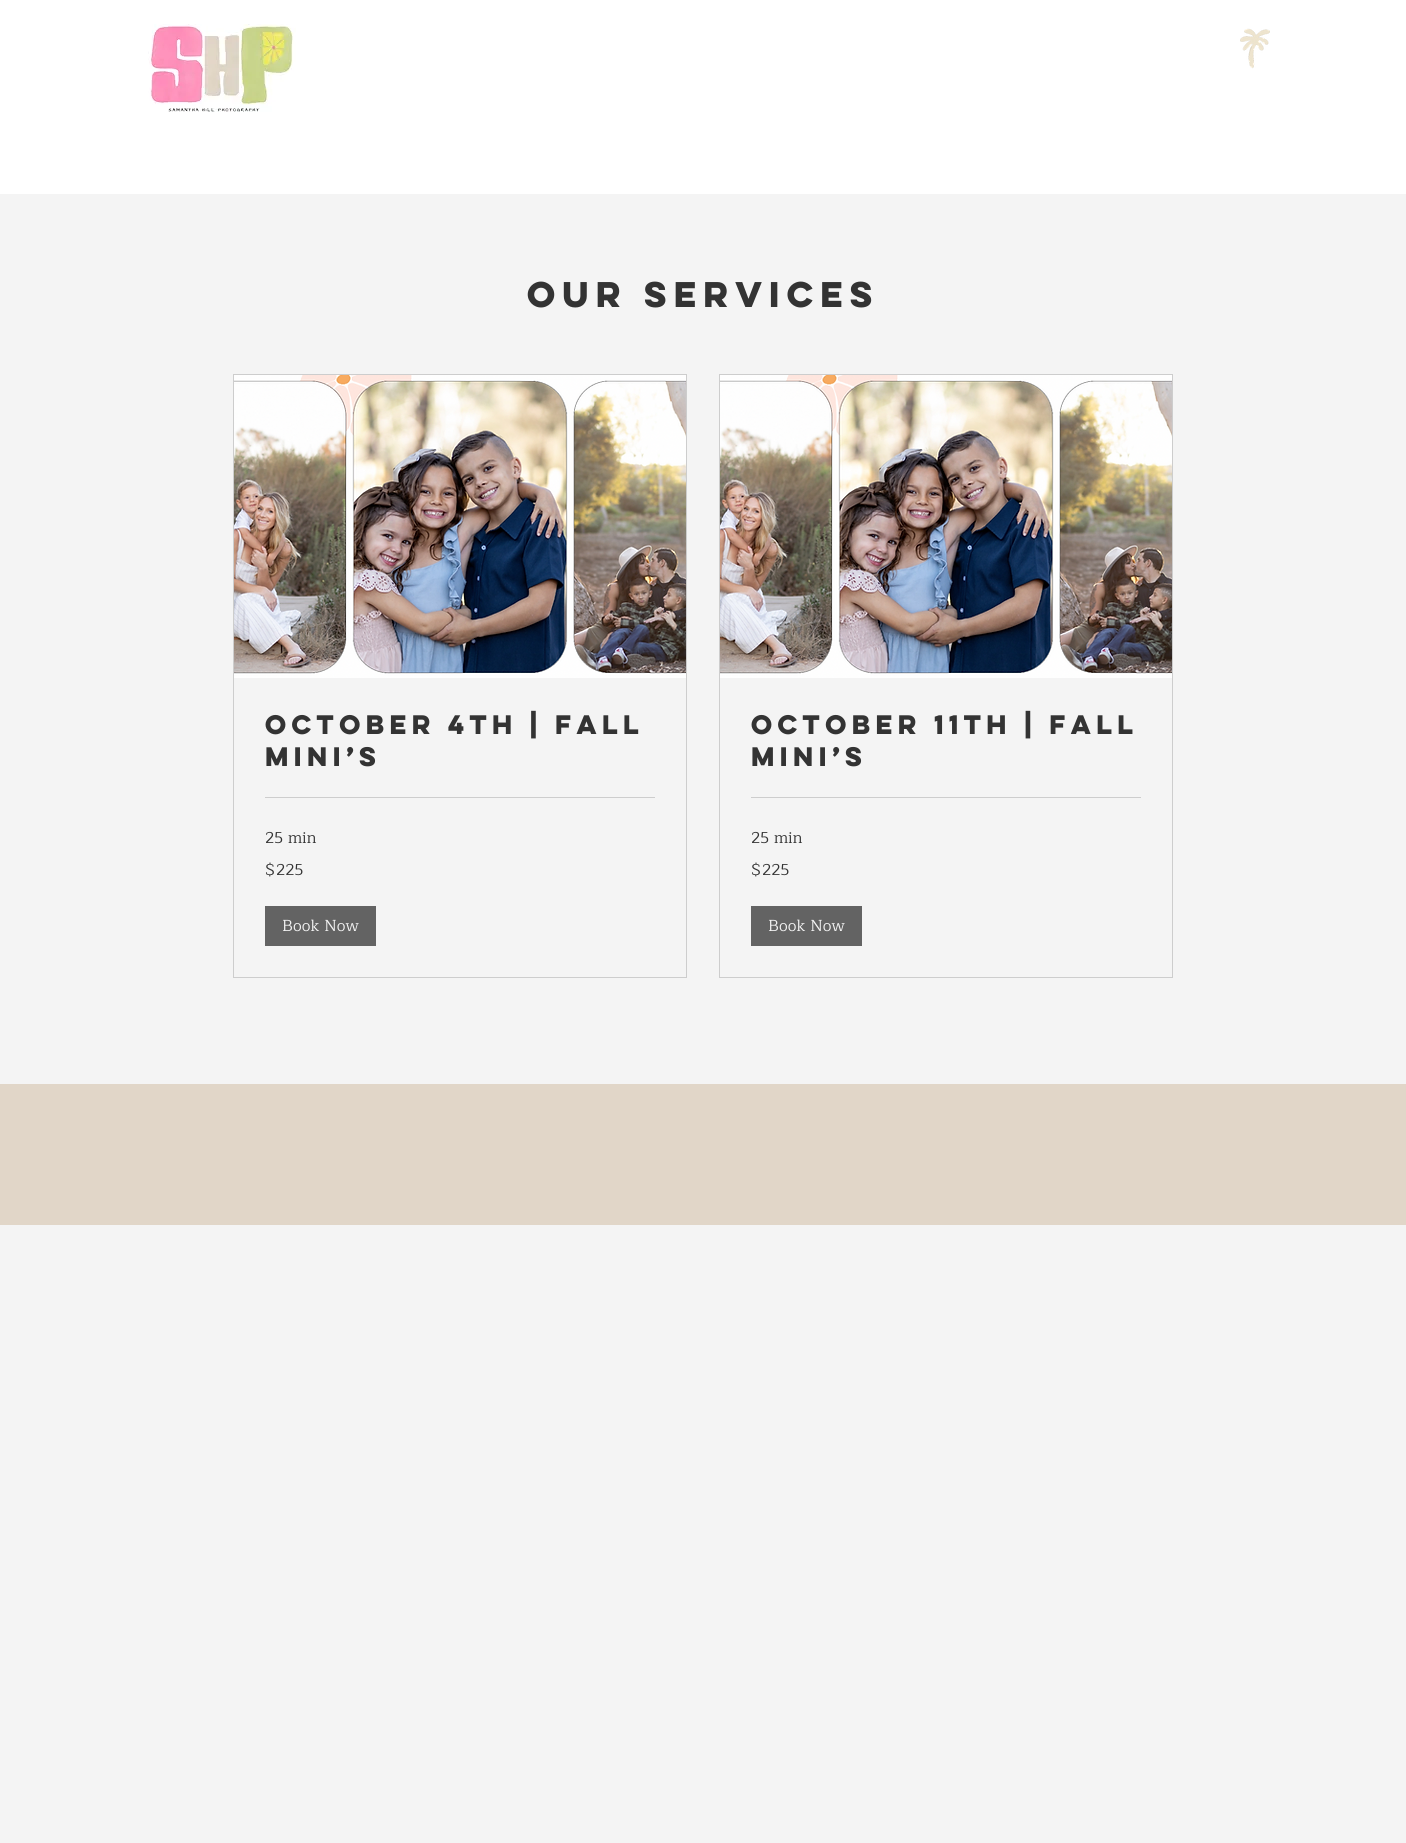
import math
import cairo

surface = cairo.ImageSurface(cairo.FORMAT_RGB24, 1406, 1843)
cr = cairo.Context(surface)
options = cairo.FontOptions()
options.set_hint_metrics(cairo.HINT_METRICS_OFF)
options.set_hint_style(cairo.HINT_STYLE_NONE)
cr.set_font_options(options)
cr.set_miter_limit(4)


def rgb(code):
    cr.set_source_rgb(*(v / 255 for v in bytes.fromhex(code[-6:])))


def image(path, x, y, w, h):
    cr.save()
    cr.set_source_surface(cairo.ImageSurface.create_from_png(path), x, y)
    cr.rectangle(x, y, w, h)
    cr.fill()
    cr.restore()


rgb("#f4f4f4")
cr.paint()
rgb("#ffffff")
cr.rectangle(0, 0, 1406, 194)
cr.fill()
image("img/1.png", 148, 24, 148, 88)
image("img/2.png", 1240, 28, 30, 41)
cr.rectangle(233.5, 374.5, 453, 603)
rgb("#cdcdcd")
cr.set_line_width(1)
cr.stroke()
image("img/3.png", 234, 375, 452, 303)
cr.rectangle(265, 797, 390, 1)
cr.fill()
rgb("#636363")
cr.rectangle(265, 906, 111, 40)
cr.fill()
cr.rectangle(719.5, 374.5, 453, 603)
rgb("#cdcdcd")
cr.stroke()
image("img/3.png", 720, 375, 452, 303)
for x, y, w, h, color in [
    (751, 797, 390, 1, "#cdcdcd"),
    (751, 906, 111, 40, "#636363"),
    (0, 1084, 1406, 141, "#e1d6c8"),
]:
    rgb(color)
    cr.rectangle(x, y, w, h)
    cr.fill()
cr.select_font_face("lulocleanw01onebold", cairo.FONT_SLANT_NORMAL, cairo.FONT_WEIGHT_BOLD)
cr.set_font_size(32)
rgb("#333333")
cr.move_to(527, 307)
cr.show_text("Our Services")
cr.set_font_size(24)
cr.move_to(265, 734)
cr.show_text("October 4th | Fall")
cr.move_to(265, 766)
cr.show_text("Mini’s")
cr.select_font_face("Maitree")
cr.set_font_size(16)
cr.move_to(265, 843)
cr.show_text("25 min")
cr.move_to(265, 875)
cr.show_text("$225")
rgb("#f4f4f4")
cr.move_to(282, 931)
cr.show_text("Book Now")
cr.select_font_face("lulocleanw01onebold", cairo.FONT_SLANT_NORMAL, cairo.FONT_WEIGHT_BOLD)
cr.set_font_size(24)
rgb("#333333")
cr.move_to(751, 734)
cr.show_text("October 11th | Fall")
cr.move_to(751, 766)
cr.show_text("Mini’s")
cr.select_font_face("Maitree")
cr.set_font_size(16)
cr.move_to(751, 843)
cr.show_text("25 min")
cr.move_to(751, 875)
cr.show_text("$225")
rgb("#f4f4f4")
cr.move_to(768, 931)
cr.show_text("Book Now")
surface.write_to_png("page.png")
